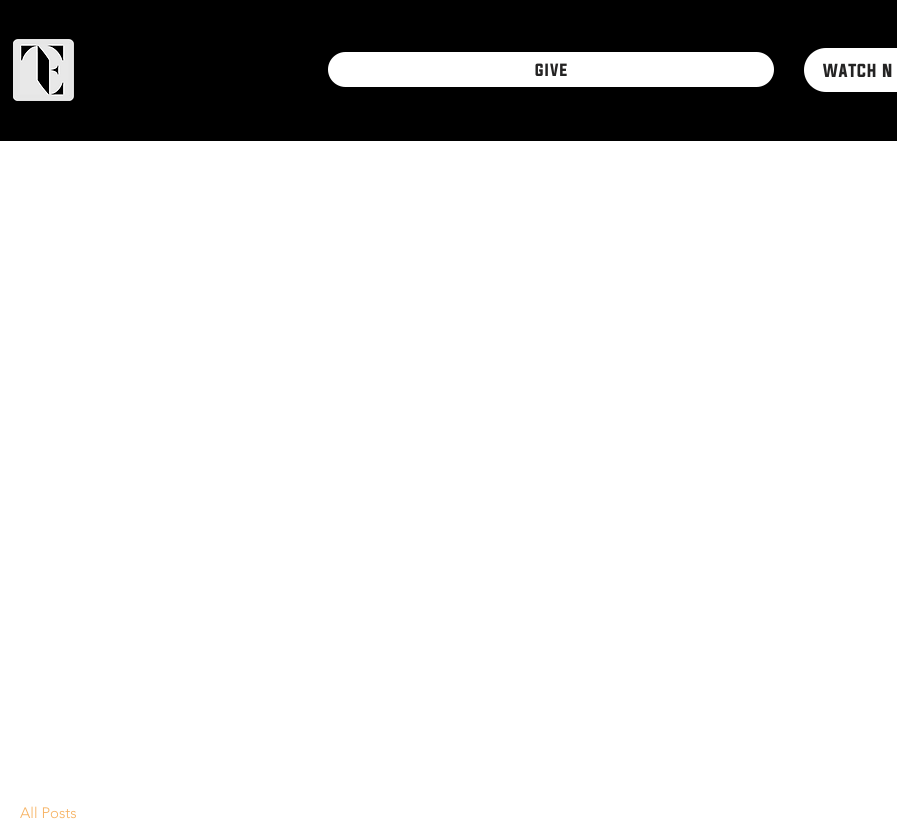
import math
import cairo

surface = cairo.ImageSurface(cairo.FORMAT_RGB24, 897, 827)
cr = cairo.Context(surface)
options = cairo.FontOptions()
options.set_hint_metrics(cairo.HINT_METRICS_OFF)
options.set_hint_style(cairo.HINT_STYLE_NONE)
cr.set_font_options(options)
cr.set_miter_limit(4)


def rgb(code):
    cr.set_source_rgb(*(v / 255 for v in bytes.fromhex(code[-6:])))


def tracked(x, y, s, letter, word):
    cr.move_to(x, y)
    for ch in s:
        cr.show_text(ch)
        cr.rel_move_to(letter + word * (ch == ' '), 0)


def rrect(x, y, w, h, r):
    cr.new_sub_path()
    for i, (u, v) in enumerate([(x + w - r, y + h - r), (x + r, y + h - r), (x + r, y + r), (x + w - r, y + r)]):
        cr.arc(u, v, r, i * math.pi / 2, (i + 1) * math.pi / 2)
    cr.close_path()


def image(path, x, y, w, h):
    cr.save()
    cr.set_source_surface(cairo.ImageSurface.create_from_png(path), x, y)
    cr.rectangle(x, y, w, h)
    cr.fill()
    cr.restore()


rgb("#ffffff")
cr.paint()
rgb("#000000")
cr.rectangle(0, 0, 897, 141)
cr.fill()
image("img/1.png", 13, 39, 61, 62)
rgb("#ffffff")
rrect(328, 52, 446, 35, 17.5)
cr.fill()
rrect(804, 48, 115, 44, 22)
cr.fill()
cr.select_font_face("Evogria")
cr.set_font_size(15)
rgb("#242323")
tracked(535, 76, "GIVE", 1, 0)
cr.set_font_size(16)
tracked(823, 77, "WATCH N", 0.75, 0)
cr.select_font_face("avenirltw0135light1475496 Light")
cr.set_font_size(15)
rgb("#f6b160")
cr.move_to(20, 818)
cr.show_text("All Posts")
surface.write_to_png("page.png")
